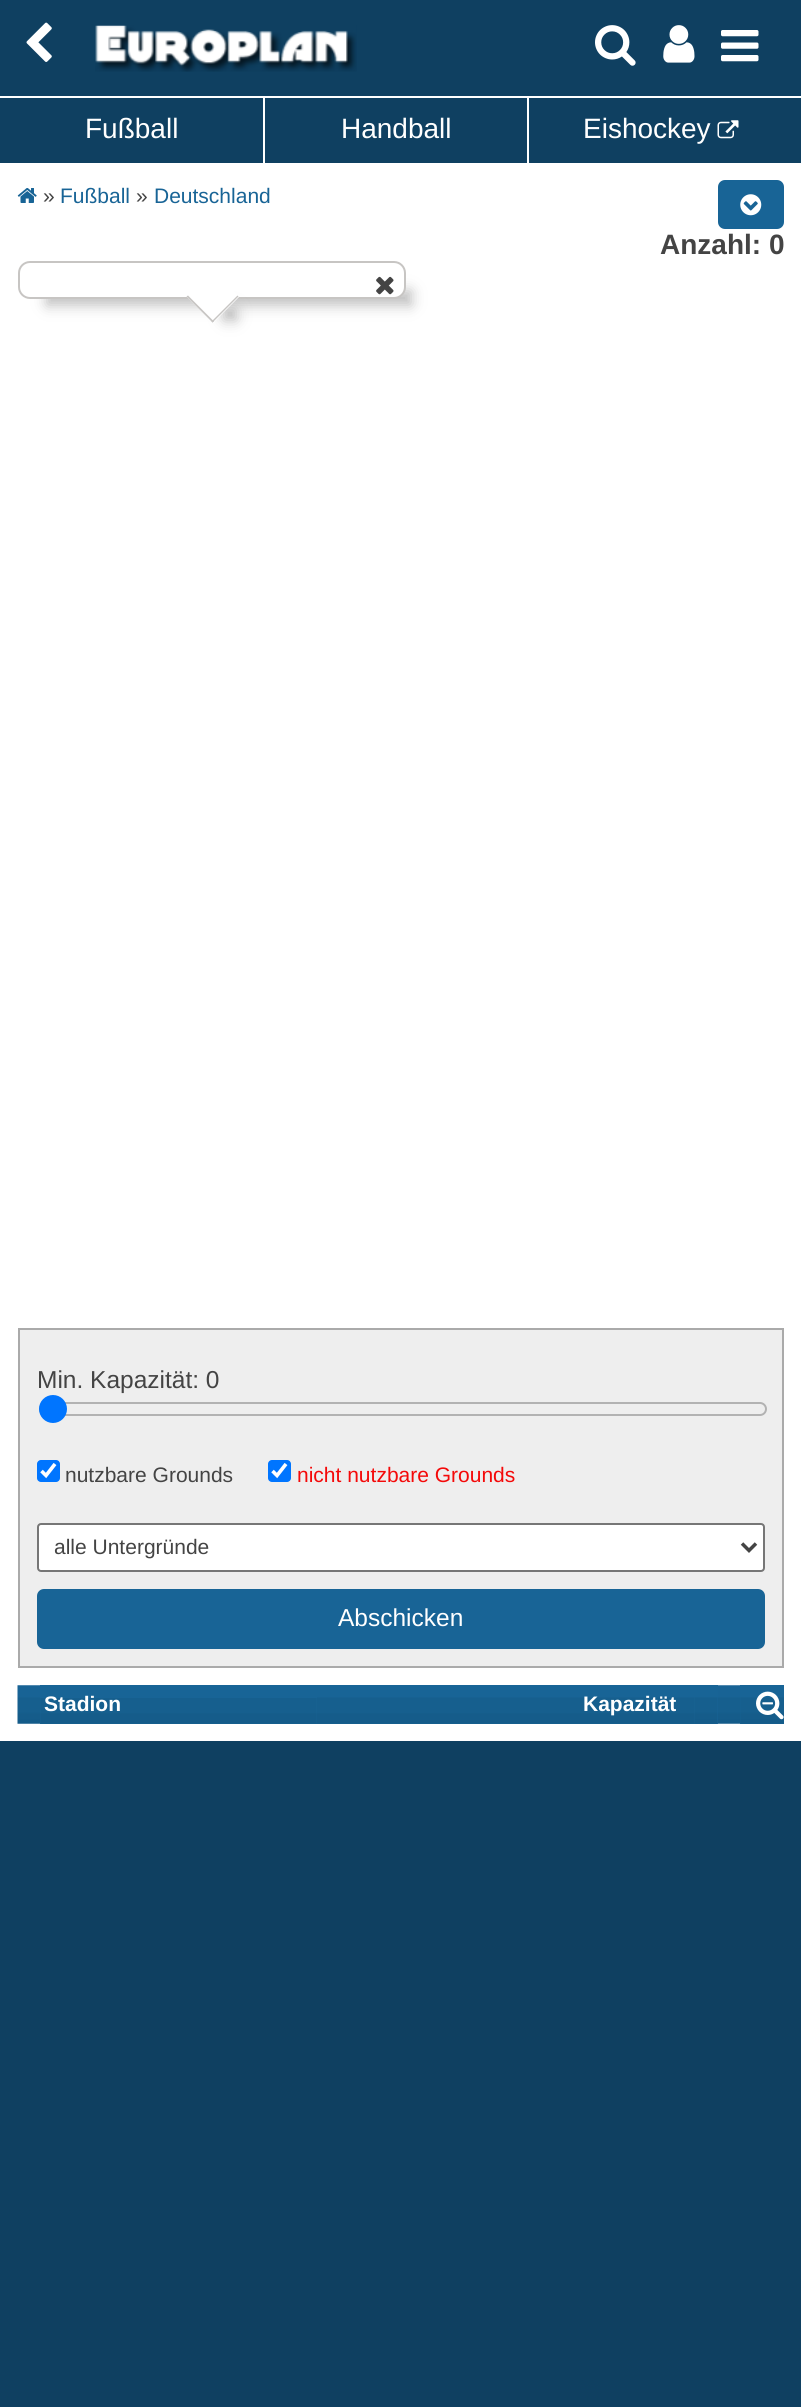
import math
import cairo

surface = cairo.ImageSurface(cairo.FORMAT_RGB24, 801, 2407)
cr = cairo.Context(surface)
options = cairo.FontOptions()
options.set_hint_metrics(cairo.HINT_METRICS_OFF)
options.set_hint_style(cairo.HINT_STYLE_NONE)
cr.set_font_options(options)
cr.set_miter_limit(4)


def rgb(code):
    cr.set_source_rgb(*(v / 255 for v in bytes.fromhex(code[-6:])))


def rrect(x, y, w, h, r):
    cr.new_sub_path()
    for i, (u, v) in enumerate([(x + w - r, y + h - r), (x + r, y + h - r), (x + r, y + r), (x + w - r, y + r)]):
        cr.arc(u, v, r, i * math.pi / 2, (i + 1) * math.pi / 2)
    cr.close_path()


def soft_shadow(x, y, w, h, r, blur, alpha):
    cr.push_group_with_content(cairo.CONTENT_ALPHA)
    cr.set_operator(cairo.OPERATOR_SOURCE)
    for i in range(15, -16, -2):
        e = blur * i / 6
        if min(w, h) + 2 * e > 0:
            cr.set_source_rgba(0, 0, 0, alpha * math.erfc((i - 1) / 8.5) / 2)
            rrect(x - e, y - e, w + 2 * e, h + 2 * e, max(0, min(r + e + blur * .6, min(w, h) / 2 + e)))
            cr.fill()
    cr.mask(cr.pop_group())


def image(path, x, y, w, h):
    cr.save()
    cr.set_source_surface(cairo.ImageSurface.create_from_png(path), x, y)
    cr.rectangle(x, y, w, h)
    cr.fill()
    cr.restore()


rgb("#0f4061")
cr.paint()
for x, y, w, h, color in [
    (263, 96, 2, 67, "#ffffff"),
    (527, 96, 2, 67, "#ffffff"),
    (0, 96, 801, 2, "#ffffff"),
]:
    rgb(color)
    cr.rectangle(x, y, w, h)
    cr.fill()
image("img/1.png", 26, 22, 26, 40)
image("img/2.png", 95, 25, 262, 47)
image("img/3.png", 595, 25, 41, 41)
image("img/4.png", 663, 25, 32, 38)
image("img/5.png", 721, 30, 38, 32)
gradient = cairo.LinearGradient(0, 919, 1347, 919)
gradient.add_color_stop_rgba(0, 1, 1, 1, 1)
gradient.add_color_stop_rgba(0.85, 1, 1, 1, 1)
gradient.add_color_stop_rgba(0.85, 0.035, 0.161, 0.243, 1)
gradient.add_color_stop_rgba(1, 0.094, 0.392, 0.588, 1)
cr.set_source(gradient)
cr.rectangle(0, 163, 801, 1578)
cr.fill()
image("img/6.png", 717, 120, 22, 19)
image("img/7.png", 17, 188, 20, 15)
rgb("#186496")
rrect(718, 180, 66, 49, 7)
cr.fill()
image("img/8.png", 740, 194, 22, 22)
rgb("#bebebe")
soft_shadow(47, 291, 364, 14, 0, 7, 1)
rgb("#ffffff")
rrect(19, 262, 386, 36, 11)
cr.fill_preserve()
rgb("#c7c5c3")
cr.stroke()
rgb("#bebebe")
soft_shadow(224, 308, 12, 12, 0, 7, 1)
rgb("#ffffff")
cr.new_path()
cr.move_to(213, 271)
cr.line_to(239, 297)
cr.line_to(213, 323)
cr.line_to(187, 297)
cr.close_path()
cr.fill()
rgb("#c7c5c3")
cr.new_path()
cr.move_to(237.5, 295.5)
cr.line_to(238.5, 296.5)
cr.line_to(212.5, 322.5)
cr.line_to(211.5, 321.5)
cr.close_path()
cr.fill()
cr.new_path()
cr.move_to(188, 295.5)
cr.line_to(214, 321.5)
cr.line_to(212.5, 322.5)
cr.line_to(186.5, 296.5)
cr.close_path()
cr.fill()
image("img/9.png", 376, 276, 18, 19)
rgb("#eeeeee")
cr.rectangle(19, 1329, 764, 338)
cr.fill_preserve()
rgb("#aaaaaa")
cr.stroke()
rrect(40, 1403, 726, 12, 6)
rgb("#b2b2b2")
cr.stroke()
rgb("#0075ff")
cr.arc(53, 1409, 14, 0, 2 * math.pi)
cr.fill()
rrect(37, 1460, 23, 22, 4)
cr.fill()
cr.new_path()
cr.move_to(41.5, 1471)
cr.line_to(46, 1475.5)
cr.line_to(55, 1464)
rgb("#ffffff")
cr.set_line_width(3.6)
cr.stroke()
rgb("#0075ff")
rrect(268, 1460, 23, 22, 4)
cr.fill()
cr.new_path()
cr.move_to(272.5, 1471)
cr.line_to(277, 1475.5)
cr.line_to(286, 1464)
rgb("#ffffff")
cr.stroke()
rrect(38, 1524, 726, 47, 3)
cr.fill_preserve()
rgb("#767676")
cr.set_line_width(2)
cr.stroke()
cr.new_path()
cr.move_to(742, 1543.5)
cr.line_to(749, 1550.5)
cr.line_to(756, 1543.5)
rgb("#444444")
cr.set_line_width(3.5)
cr.stroke()
rgb("#186496")
rrect(37, 1589, 728, 60, 7)
cr.fill()
image("img/10.png", 17, 1685, 23, 39)
cr.rectangle(40, 1685, 678, 39)
cr.fill()
image("img/11.png", 40, 1698, 277, 26)
image("img/12.png", 317, 1697, 378, 27)
image("img/13.png", 695, 1697, 23, 27)
image("img/14.png", 718, 1685, 22, 39)
cr.rectangle(740, 1685, 44, 39)
cr.fill()
image("img/15.png", 740, 1697, 44, 27)
image("img/16.png", 756, 1691, 28, 29)
cr.select_font_face("Liberation Sans")
cr.set_font_size(28)
rgb("#ffffff")
for x, y, s in [
    (85, 138, "Fußball"),
    (341, 138, "Handball"),
    (583, 138, "Eishockey"),
]:
    cr.move_to(x, y)
    cr.show_text(s)
cr.set_font_size(21)
rgb("#444444")
cr.move_to(43, 203)
cr.show_text("»")
rgb("#186496")
cr.move_to(60, 203)
cr.show_text("Fußball")
rgb("#444444")
cr.move_to(136, 203)
cr.show_text("»")
rgb("#186496")
cr.move_to(154, 203)
cr.show_text("Deutschland")
cr.select_font_face("Liberation Sans", cairo.FONT_SLANT_NORMAL, cairo.FONT_WEIGHT_BOLD)
cr.set_font_size(28)
rgb("#444444")
cr.move_to(660, 254)
cr.show_text("Anzahl: 0")
cr.select_font_face("Liberation Sans")
cr.set_font_size(24.5)
cr.move_to(37, 1388)
cr.show_text("Min. Kapazität: 0")
cr.set_font_size(21)
cr.move_to(65, 1482)
cr.show_text("nutzbare Grounds")
rgb("#f40909")
cr.move_to(297, 1482)
cr.show_text("nicht nutzbare Grounds")
rgb("#444444")
cr.move_to(54, 1554)
cr.show_text("alle Untergründe")
cr.set_font_size(24.5)
rgb("#ffffff")
cr.move_to(338, 1626)
cr.show_text("Abschicken")
cr.select_font_face("Liberation Sans", cairo.FONT_SLANT_NORMAL, cairo.FONT_WEIGHT_BOLD)
cr.set_font_size(21)
cr.move_to(44, 1711)
cr.show_text("Stadion")
cr.move_to(583, 1711)
cr.show_text("Kapazität")
surface.write_to_png("page.png")
